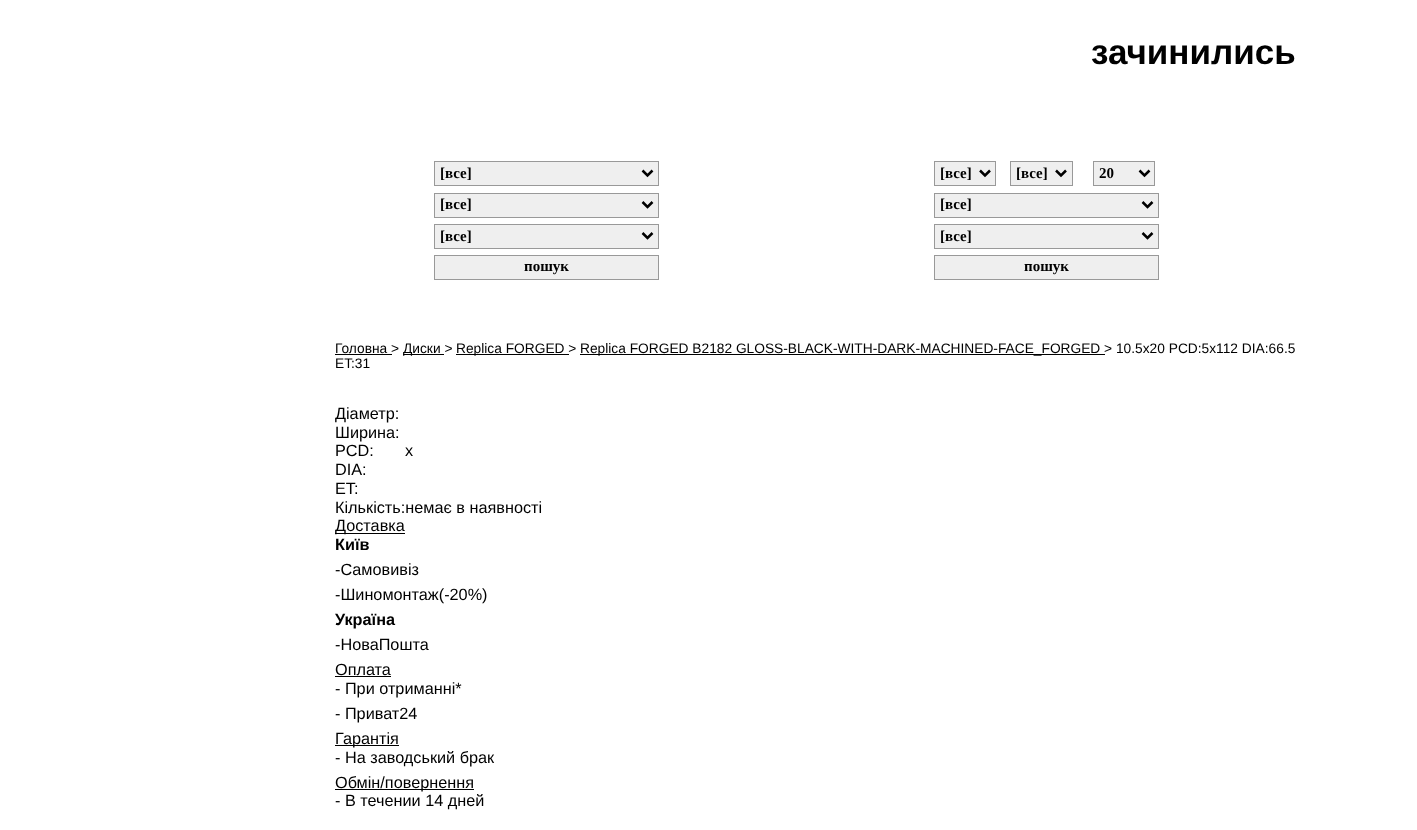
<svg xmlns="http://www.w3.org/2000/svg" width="1417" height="830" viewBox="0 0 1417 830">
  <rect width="100%" height="100%" fill="#ffffff"/>
  <text x="1091" y="64" font-family="Liberation Sans" font-size="35" font-weight="bold" fill="#000000">зачинились</text>
  <rect x="434.5" y="161.5" width="224" height="24" fill="#efefef" stroke="#999999"/>
  <path d="M642.5 170.5L647.5 175.5L652.5 170.5" fill="none" stroke="#000000" stroke-width="2.5"/>
  <text x="440" y="178" font-family="Liberation Serif" font-size="15" font-weight="bold" fill="#000000">[все]</text>
  <rect x="434.5" y="193.5" width="224" height="24" fill="#efefef" stroke="#999999"/>
  <path d="M642.5 202L647.5 207L652.5 202" fill="none" stroke="#000000" stroke-width="2.5"/>
  <text x="440" y="209" font-family="Liberation Serif" font-size="15" font-weight="bold" fill="#000000">[все]</text>
  <rect x="434.5" y="224.5" width="224" height="24" fill="#efefef" stroke="#999999"/>
  <path d="M642.5 233L647.5 238L652.5 233" fill="none" stroke="#000000" stroke-width="2.5"/>
  <text x="440" y="241" font-family="Liberation Serif" font-size="15" font-weight="bold" fill="#000000">[все]</text>
  <rect x="434.5" y="255.5" width="224" height="24" fill="#efefef" stroke="#999999"/>
  <text x="524" y="271" font-family="Liberation Serif" font-size="15" font-weight="bold" fill="#000000">пошук</text>
  <rect x="934.5" y="161.5" width="61" height="24" fill="#efefef" stroke="#999999"/>
  <path d="M980 170.5L985 175.5L990 170.5" fill="none" stroke="#000000" stroke-width="2.5"/>
  <text x="940" y="178" font-family="Liberation Serif" font-size="15" font-weight="bold" fill="#000000">[все]</text>
  <rect x="1010.5" y="161.5" width="62" height="24" fill="#efefef" stroke="#999999"/>
  <path d="M1056 170.5L1061 175.5L1066 170.5" fill="none" stroke="#000000" stroke-width="2.5"/>
  <text x="1016" y="178" font-family="Liberation Serif" font-size="15" font-weight="bold" fill="#000000">[все]</text>
  <rect x="1093.5" y="161.5" width="61" height="24" fill="#efefef" stroke="#999999"/>
  <path d="M1139.5 170.5L1144.5 175.5L1149.5 170.5" fill="none" stroke="#000000" stroke-width="2.5"/>
  <text x="1099" y="178" font-family="Liberation Serif" font-size="15" font-weight="bold" fill="#000000">20</text>
  <rect x="934.5" y="193.5" width="224" height="24" fill="#efefef" stroke="#999999"/>
  <path d="M1142.5 202L1147.5 207L1152.5 202" fill="none" stroke="#000000" stroke-width="2.5"/>
  <text x="940" y="209" font-family="Liberation Serif" font-size="15" font-weight="bold" fill="#000000">[все]</text>
  <rect x="934.5" y="224.5" width="224" height="24" fill="#efefef" stroke="#999999"/>
  <path d="M1142.5 233L1147.5 238L1152.5 233" fill="none" stroke="#000000" stroke-width="2.5"/>
  <text x="940" y="241" font-family="Liberation Serif" font-size="15" font-weight="bold" fill="#000000">[все]</text>
  <rect x="934.5" y="255.5" width="224" height="24" fill="#efefef" stroke="#999999"/>
  <text x="1024" y="271" font-family="Liberation Serif" font-size="15" font-weight="bold" fill="#000000">пошук</text>
  <text x="335" y="353" font-family="Liberation Sans" font-size="13.75" fill="#000000">Головна &gt;</text>
  <rect x="335" y="354" width="57" height="1" fill="#000000"/>
  <rect x="403" y="354" width="41" height="1" fill="#000000"/>
  <text x="403" y="353" font-family="Liberation Sans" font-size="13.75" fill="#000000">Диски &gt;</text>
  <rect x="456" y="354" width="113" height="1" fill="#000000"/>
  <text x="456" y="353" font-family="Liberation Sans" font-size="13.75" fill="#000000">Replica FORGED &gt;</text>
  <rect x="580" y="354" width="525" height="1" fill="#000000"/>
  <text x="580" y="353" font-family="Liberation Sans" font-size="13.75" fill="#000000">Replica FORGED B2182 GLOSS-BLACK-WITH-DARK-MACHINED-FACE_FORGED &gt; 10.5x20 PCD:5x112 DIA:66.5</text>
  <text x="335" y="368" font-family="Liberation Sans" font-size="13.75" fill="#000000">ET:31</text>
  <text x="335" y="419" font-family="Liberation Sans" font-size="16.25" fill="#000000">Діаметр:</text>
  <text x="335" y="438" font-family="Liberation Sans" font-size="16.25" fill="#000000">Ширина:</text>
  <text x="335" y="456" font-family="Liberation Sans" font-size="16.25" fill="#000000">PCD:</text>
  <text x="405" y="456" font-family="Liberation Sans" font-size="16.25" fill="#000000">x</text>
  <text x="335" y="475" font-family="Liberation Sans" font-size="16.25" fill="#000000">DIA:</text>
  <text x="335" y="494" font-family="Liberation Sans" font-size="16.25" fill="#000000">ET:</text>
  <text x="335" y="513" font-family="Liberation Sans" font-size="16.25" fill="#000000">Кількість:немає в наявності</text>
  <rect x="335" y="533" width="70" height="1" fill="#000000"/>
  <text x="335" y="531" font-family="Liberation Sans" font-size="16.25" fill="#000000">Доставка</text>
  <text x="335" y="550" font-family="Liberation Sans" font-size="16.25" font-weight="bold" fill="#000000">Київ</text>
  <text x="335" y="575" font-family="Liberation Sans" font-size="16.25" fill="#000000">-Самовивіз</text>
  <text x="335" y="600" font-family="Liberation Sans" font-size="16.25" fill="#000000">-Шиномонтаж(-20%)</text>
  <text x="335" y="625" font-family="Liberation Sans" font-size="16.25" font-weight="bold" fill="#000000">Україна</text>
  <text x="335" y="650" font-family="Liberation Sans" font-size="16.25" fill="#000000">-НоваПошта</text>
  <text x="335" y="675" font-family="Liberation Sans" font-size="16.25" fill="#000000">Оплата</text>
  <rect x="335" y="676" width="56" height="1" fill="#000000"/>
  <text x="335" y="694" font-family="Liberation Sans" font-size="16.25" fill="#000000">- При отриманні*</text>
  <text x="335" y="719" font-family="Liberation Sans" font-size="16.25" fill="#000000">- Приват24</text>
  <rect x="335" y="745" width="64" height="1" fill="#000000"/>
  <text x="335" y="744" font-family="Liberation Sans" font-size="16.25" fill="#000000">Гарантія</text>
  <text x="335" y="763" font-family="Liberation Sans" font-size="16.25" fill="#000000">- На заводський брак</text>
  <rect x="335" y="789" width="139" height="1" fill="#000000"/>
  <text x="335" y="788" font-family="Liberation Sans" font-size="16.25" fill="#000000">Обмін/повернення</text>
  <text x="335" y="806" font-family="Liberation Sans" font-size="16.25" fill="#000000">- В течении 14 дней</text>
</svg>
